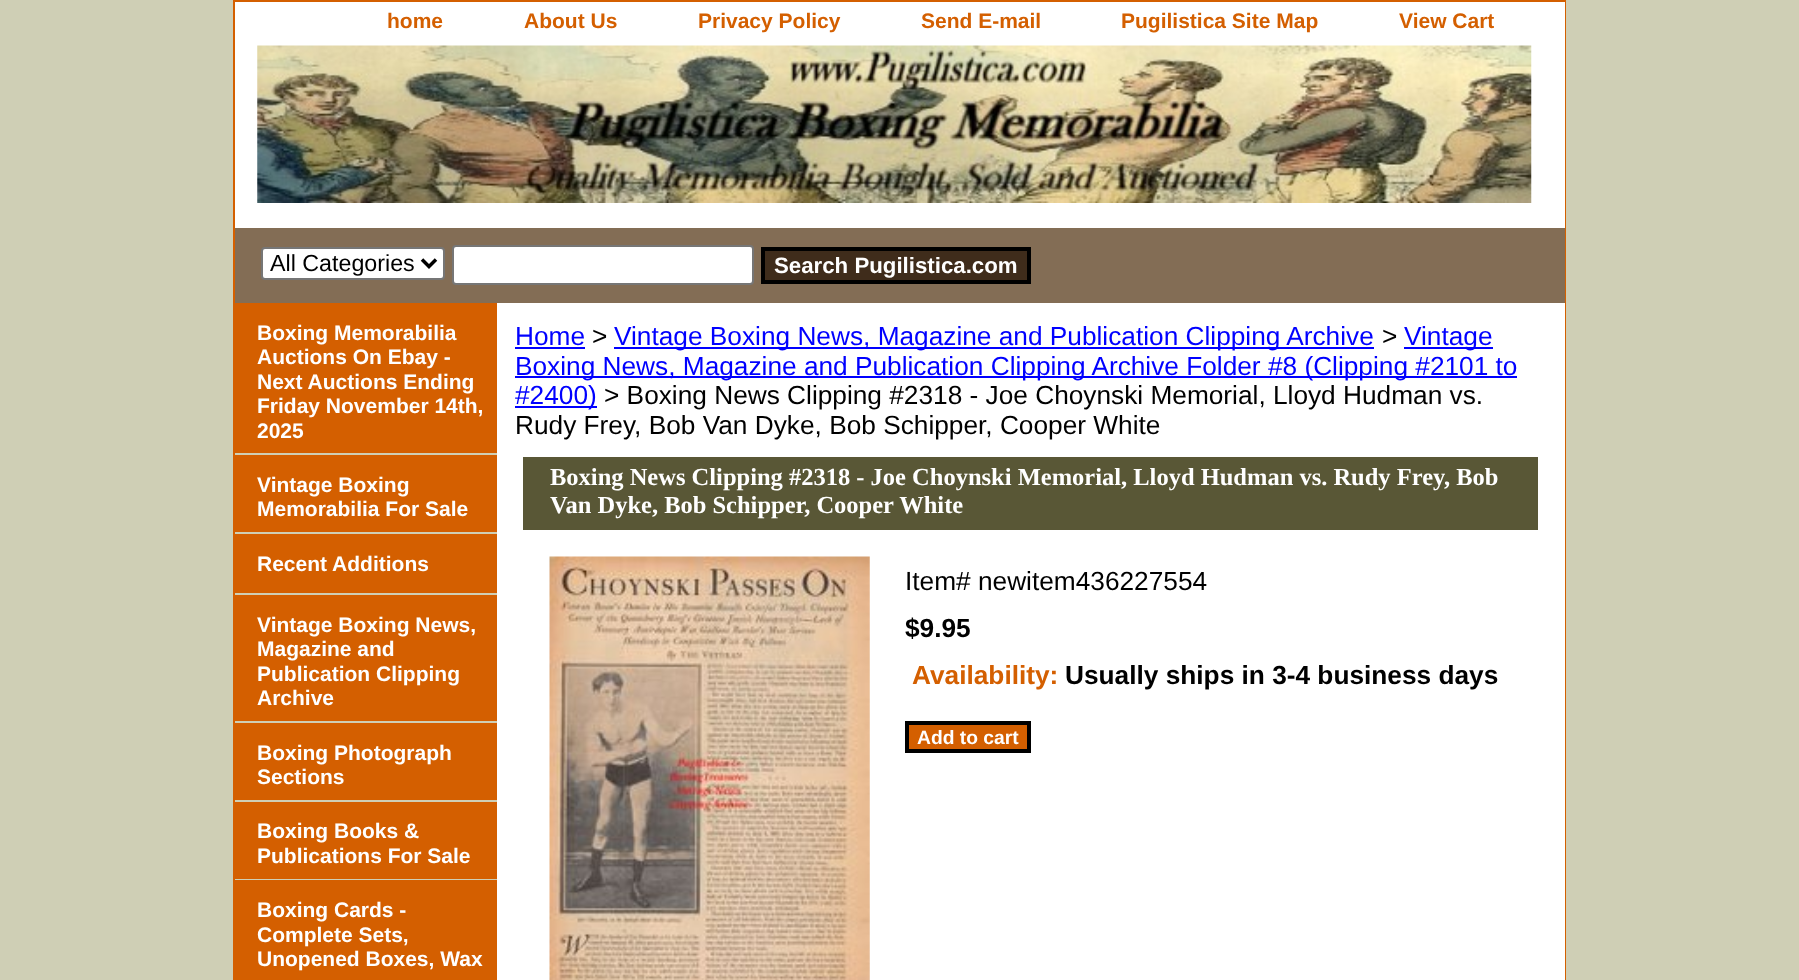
<svg xmlns="http://www.w3.org/2000/svg" width="1799" height="980" viewBox="0 0 1799 980">
  <rect width="100%" height="100%" fill="#cfcfb5"/>
  <rect x="234" y="1" width="1331" height="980" fill="none" stroke="#d45f00" stroke-width="2"/>
  <rect x="235" y="2" width="1330" height="226" fill="#ffffff"/>
  <text x="387" y="28" font-family="Liberation Sans" font-size="21" font-weight="bold" fill="#d45f00">home</text>
  <text x="524" y="28" font-family="Liberation Sans" font-size="21" font-weight="bold" fill="#d45f00">About Us</text>
  <text x="698" y="28" font-family="Liberation Sans" font-size="21" font-weight="bold" fill="#d45f00">Privacy Policy</text>
  <text x="921" y="28" font-family="Liberation Sans" font-size="21" font-weight="bold" fill="#d45f00">Send E-mail</text>
  <text x="1121" y="28" font-family="Liberation Sans" font-size="21" font-weight="bold" fill="#d45f00">Pugilistica Site Map</text>
  <text x="1399" y="28" font-family="Liberation Sans" font-size="21" font-weight="bold" fill="#d45f00">View Cart</text>
  <image x="257" y="45" width="1275" height="158" href="img1.png"/>
  <rect x="235" y="228" width="1330" height="75" fill="#836d55"/>
  <rect x="262" y="248" width="182" height="31" rx="3" fill="#ffffff" stroke="#767676" stroke-width="2"/>
  <path d="M422 259.5L429 266.5L436 259.5" fill="none" stroke="#000000" stroke-width="3.5"/>
  <text x="270" y="271" font-family="Liberation Sans" font-size="23.25" fill="#000000">All Categories</text>
  <rect x="453" y="246" width="300" height="38" rx="3" fill="#ffffff" stroke="#767676" stroke-width="2"/>
  <rect x="763" y="249" width="266" height="33" fill="#3f2c1b" stroke="#000000" stroke-width="4"/>
  <text x="774" y="273" font-family="Liberation Sans" font-size="22.25" font-weight="bold" fill="#ffffff">Search Pugilistica.com</text>
  <rect x="497" y="303" width="1068" height="677" fill="#ffffff"/>
  <rect x="235" y="303" width="262" height="576" fill="#d45f00"/>
  <rect x="235" y="453" width="262" height="2" fill="#cfcfb5"/>
  <text x="257" y="340" font-family="Liberation Sans" font-size="21" font-weight="bold" fill="#ffffff">Boxing Memorabilia</text>
  <text x="257" y="364" font-family="Liberation Sans" font-size="21" font-weight="bold" fill="#ffffff">Auctions On Ebay -</text>
  <text x="257" y="389" font-family="Liberation Sans" font-size="21" font-weight="bold" fill="#ffffff">Next Auctions Ending</text>
  <text x="257" y="413" font-family="Liberation Sans" font-size="21" font-weight="bold" fill="#ffffff">Friday November 14th,</text>
  <text x="257" y="438" font-family="Liberation Sans" font-size="21" font-weight="bold" fill="#ffffff">2025</text>
  <rect x="235" y="532" width="262" height="2" fill="#cfcfb5"/>
  <text x="257" y="492" font-family="Liberation Sans" font-size="21" font-weight="bold" fill="#ffffff">Vintage Boxing</text>
  <text x="257" y="516" font-family="Liberation Sans" font-size="21" font-weight="bold" fill="#ffffff">Memorabilia For Sale</text>
  <rect x="235" y="593" width="262" height="2" fill="#cfcfb5"/>
  <text x="257" y="571" font-family="Liberation Sans" font-size="21" font-weight="bold" fill="#ffffff">Recent Additions</text>
  <rect x="235" y="721" width="262" height="2" fill="#cfcfb5"/>
  <text x="257" y="632" font-family="Liberation Sans" font-size="21" font-weight="bold" fill="#ffffff">Vintage Boxing News,</text>
  <text x="257" y="656" font-family="Liberation Sans" font-size="21" font-weight="bold" fill="#ffffff">Magazine and</text>
  <text x="257" y="681" font-family="Liberation Sans" font-size="21" font-weight="bold" fill="#ffffff">Publication Clipping</text>
  <text x="257" y="705" font-family="Liberation Sans" font-size="21" font-weight="bold" fill="#ffffff">Archive</text>
  <rect x="235" y="800" width="262" height="2" fill="#cfcfb5"/>
  <text x="257" y="760" font-family="Liberation Sans" font-size="21" font-weight="bold" fill="#ffffff">Boxing Photograph</text>
  <text x="257" y="784" font-family="Liberation Sans" font-size="21" font-weight="bold" fill="#ffffff">Sections</text>
  <text x="257" y="838" font-family="Liberation Sans" font-size="21" font-weight="bold" fill="#ffffff">Boxing Books &amp;</text>
  <text x="257" y="863" font-family="Liberation Sans" font-size="21" font-weight="bold" fill="#ffffff">Publications For Sale</text>
  <rect x="235" y="880" width="262" height="100" fill="#d45f00"/>
  <text x="257" y="917" font-family="Liberation Sans" font-size="21" font-weight="bold" fill="#ffffff">Boxing Cards -</text>
  <text x="257" y="942" font-family="Liberation Sans" font-size="21" font-weight="bold" fill="#ffffff">Complete Sets,</text>
  <text x="257" y="966" font-family="Liberation Sans" font-size="21" font-weight="bold" fill="#ffffff">Unopened Boxes, Wax</text>
  <text x="515" y="345" font-family="Liberation Sans" font-size="26.25" fill="#0000ff">Home</text>
  <rect x="515" y="347" width="70" height="2" fill="#0000ff"/>
  <text x="592" y="345" font-family="Liberation Sans" font-size="26.25" fill="#000000">&gt;</text>
  <rect x="614" y="347" width="760" height="2" fill="#0000ff"/>
  <text x="614" y="345" font-family="Liberation Sans" font-size="26.25" fill="#0000ff">Vintage Boxing News, Magazine and Publication Clipping Archive</text>
  <text x="1382" y="345" font-family="Liberation Sans" font-size="26.25" fill="#000000">&gt;</text>
  <rect x="1404" y="347" width="89" height="2" fill="#0000ff"/>
  <text x="1404" y="345" font-family="Liberation Sans" font-size="26.25" fill="#0000ff">Vintage</text>
  <rect x="515" y="376" width="1002" height="2" fill="#0000ff"/>
  <text x="515" y="375" font-family="Liberation Sans" font-size="26.25" fill="#0000ff">Boxing News, Magazine and Publication Clipping Archive Folder #8 (Clipping #2101 to</text>
  <rect x="515" y="406" width="82" height="2" fill="#0000ff"/>
  <text x="515" y="404" font-family="Liberation Sans" font-size="26.25" fill="#0000ff">#2400)</text>
  <text x="604" y="404" font-family="Liberation Sans" font-size="26.25" fill="#000000">&gt; Boxing News Clipping #2318 - Joe Choynski Memorial, Lloyd Hudman vs.</text>
  <text x="515" y="434" font-family="Liberation Sans" font-size="26.25" fill="#000000">Rudy Frey, Bob Van Dyke, Bob Schipper, Cooper White</text>
  <rect x="523" y="457" width="1015" height="73" fill="#595736"/>
  <text x="550" y="485" font-family="Liberation Serif" font-size="24.5" font-weight="bold" fill="#ffffff">Boxing News Clipping #2318 - Joe Choynski Memorial, Lloyd Hudman vs. Rudy Frey, Bob</text>
  <text x="550" y="513" font-family="Liberation Serif" font-size="24.5" font-weight="bold" fill="#ffffff">Van Dyke, Bob Schipper, Cooper White</text>
  <image x="549" y="556" width="321" height="424" href="img2.png"/>
  <text x="905" y="590" font-family="Liberation Sans" font-size="26.25" fill="#000000">Item# newitem436227554</text>
  <text x="905" y="637" font-family="Liberation Sans" font-size="26.25" font-weight="bold" fill="#000000">$9.95</text>
  <text x="912" y="684" font-family="Liberation Sans" font-size="26.25" font-weight="bold" fill="#d45f00">Availability:</text>
  <text x="1065" y="684" font-family="Liberation Sans" font-size="26.25" font-weight="bold" fill="#000000">Usually ships in 3-4 business days</text>
  <rect x="907" y="723" width="122" height="28" fill="#d45f00" stroke="#000000" stroke-width="4"/>
  <text x="917" y="744" font-family="Liberation Sans" font-size="19.25" font-weight="bold" fill="#ffffff">Add to cart</text>
</svg>
